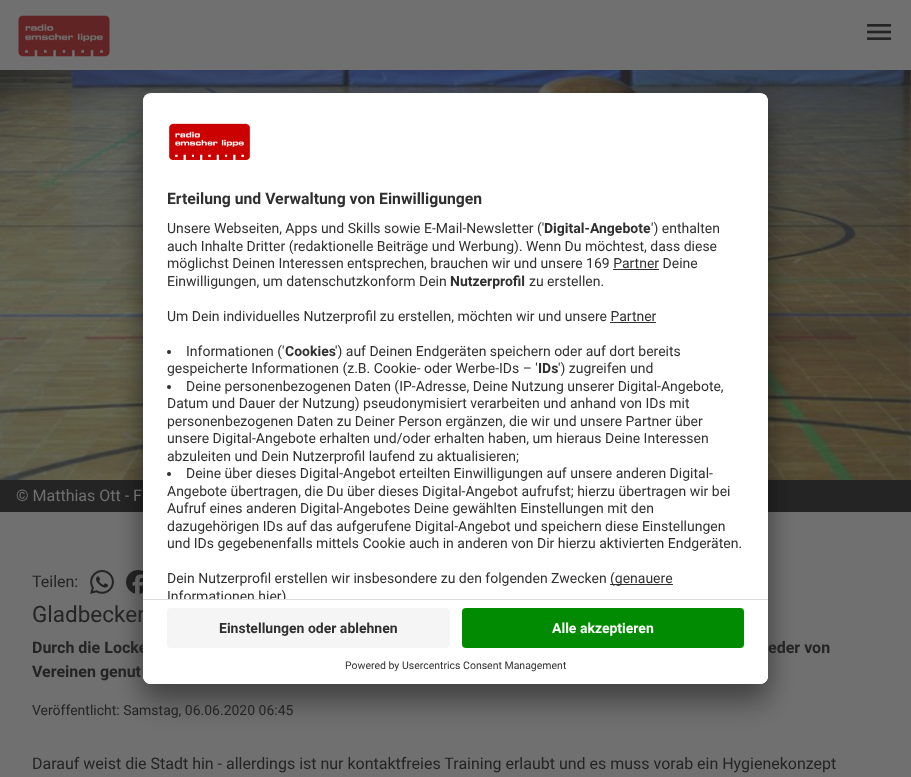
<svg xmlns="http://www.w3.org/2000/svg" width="911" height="777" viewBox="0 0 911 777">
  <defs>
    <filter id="blur1" x="-50%" y="-200%" width="200%" height="500%"><feGaussianBlur stdDeviation="14"/></filter>
    <filter id="blur2" x="-50%" y="-200%" width="200%" height="500%"><feGaussianBlur stdDeviation="13"/></filter>
    <clipPath id="clip1"><rect x="143" y="93" width="625" height="591" rx="8"/></clipPath>
    <clipPath id="clip2"><path d="M151 93H760C764.5 93 768 96.5 768 101V599H143V101C143 96.5 146.5 93 151 93Z"/></clipPath>
  </defs>
  <rect width="100%" height="100%" fill="#707070"/>
  <image x="0" y="70" width="911" height="410" href="img4.png"/>
  <rect x="0" y="480" width="911" height="32" fill="#242424"/>
  <image x="90" y="570" width="24" height="24" href="img5.png"/>
  <image x="126" y="570" width="17" height="24" href="img6.png"/>
  <rect x="143" y="113" width="625" height="591" rx="8" fill="#000000" fill-opacity="0.3" filter="url(#blur1)"/>
  <rect x="143" y="98" width="625" height="591" rx="8" fill="#000000" fill-opacity="0.22" filter="url(#blur2)"/>
  <text x="32" y="622" font-family="Roboto" font-size="22.5" fill="#242424">Gladbecker</text>
  <text x="32" y="653" font-family="Roboto" font-size="16" font-weight="bold" fill="#242424">Durch die Locke</text>
  <rect x="143" y="93" width="625" height="591" rx="8" fill="#ffffff"/>
  <g clip-path="url(#clip1)">
    <g clip-path="url(#clip2)">
      <rect x="143" y="94" width="625" height="505" fill="#ffffff"/>
    </g>
  </g>
  <image x="169" y="123" width="82" height="37" href="img1.png"/>
  <text x="167" y="204" font-family="Roboto" font-size="15.75" font-weight="bold" fill="#303030">Erteilung und Verwaltung von Einwilligungen</text>
  <text x="167" y="233" font-family="Roboto" font-size="14" fill="#303030">Unsere Webseiten, Apps und Skills sowie E-Mail-Newsletter ('</text>
  <text x="544" y="233" font-family="Roboto" font-size="14" font-weight="bold" fill="#303030">Digital-Angebote</text>
  <text x="651" y="233" font-family="Roboto" font-size="14" fill="#303030">') enthalten</text>
  <text x="167" y="251" font-family="Roboto" font-size="14" fill="#303030">auch Inhalte Dritter (redaktionelle Beiträge und Werbung). Wenn Du möchtest, dass diese</text>
  <text x="167" y="268" font-family="Roboto" font-size="14" fill="#303030">möglichst Deinen Interessen entsprechen, brauchen wir und unsere 169 Partner Deine</text>
  <rect x="613" y="269" width="46" height="1" fill="#303030"/>
  <text x="167" y="286" font-family="Roboto" font-size="14" fill="#303030">Einwilligungen, um datenschutzkonform Dein</text>
  <text x="450" y="286" font-family="Roboto" font-size="14" font-weight="bold" fill="#303030">Nutzerprofil</text>
  <text x="529" y="286" font-family="Roboto" font-size="14" fill="#303030">zu erstellen.</text>
  <text x="167" y="321" font-family="Roboto" font-size="14" fill="#303030">Um Dein individuelles Nutzerprofil zu erstellen, möchten wir und unsere Partner</text>
  <rect x="610" y="322" width="46" height="1" fill="#303030"/>
  <circle cx="169" cy="352" r="2" fill="#303030"/>
  <text x="186" y="356" font-family="Roboto" font-size="14" fill="#303030">Informationen ('</text>
  <text x="285" y="356" font-family="Roboto" font-size="14" font-weight="bold" fill="#303030">Cookies</text>
  <text x="335" y="356" font-family="Roboto" font-size="14" fill="#303030">') auf Deinen Endgeräten speichern oder auf dort bereits</text>
  <text x="167" y="373" font-family="Roboto" font-size="14" fill="#303030">gespeicherte Informationen (z.B. Cookie- oder Werbe-IDs – '</text>
  <text x="538" y="373" font-family="Roboto" font-size="14" font-weight="bold" fill="#303030">IDs</text>
  <text x="558" y="373" font-family="Roboto" font-size="14" fill="#303030">') zugreifen und</text>
  <circle cx="169" cy="387" r="2" fill="#303030"/>
  <text x="186" y="391" font-family="Roboto" font-size="14" fill="#303030">Deine personenbezogenen Daten (IP-Adresse, Deine Nutzung unserer Digital-Angebote,</text>
  <text x="167" y="408" font-family="Roboto" font-size="14" fill="#303030">Datum und Dauer der Nutzung) pseudonymisiert verarbeiten und anhand von IDs mit</text>
  <text x="167" y="426" font-family="Roboto" font-size="14" fill="#303030">personenbezogenen Daten zu Deiner Person ergänzen, die wir und unsere Partner über</text>
  <text x="167" y="443" font-family="Roboto" font-size="14" fill="#303030">unsere Digital-Angebote erhalten und/oder erhalten haben, um hieraus Deine Interessen</text>
  <text x="167" y="461" font-family="Roboto" font-size="14" fill="#303030">abzuleiten und Dein Nutzerprofil laufend zu aktualisieren;</text>
  <circle cx="169" cy="474" r="2" fill="#303030"/>
  <text x="186" y="478" font-family="Roboto" font-size="14" fill="#303030">Deine über dieses Digital-Angebot erteilten Einwilligungen auf unsere anderen Digital-</text>
  <text x="167" y="496" font-family="Roboto" font-size="14" fill="#303030">Angebote übertragen, die Du über dieses Digital-Angebot aufrufst; hierzu übertragen wir bei</text>
  <text x="167" y="513" font-family="Roboto" font-size="14" fill="#303030">Aufruf eines anderen Digital-Angebotes Deine gewählten Einstellungen mit den</text>
  <text x="167" y="531" font-family="Roboto" font-size="14" fill="#303030">dazugehörigen IDs auf das aufgerufene Digital-Angebot und speichern diese Einstellungen</text>
  <text x="167" y="548" font-family="Roboto" font-size="14" fill="#303030">und IDs gegebenenfalls mittels Cookie auch in anderen von Dir hierzu aktivierten Endgeräten.</text>
  <text x="167" y="583" font-family="Roboto" font-size="14" fill="#303030">Dein Nutzerprofil erstellen wir insbesondere zu den folgenden Zwecken</text>
  <rect x="610" y="584" width="63" height="1" fill="#303030"/>
  <text x="610" y="583" font-family="Roboto" font-size="14" fill="#303030">(genauere</text>
  <g clip-path="url(#clip2)">
    <text x="167" y="601" font-family="Roboto" font-size="14" fill="#303030">Informationen hier)</text>
  </g>
  <path d="M143 599H768V676C768 680.5 764.5 684 760 684H151C146.5 684 143 680.5 143 676Z" fill="#ffffff"/>
  <rect x="143" y="599" width="625" height="1" fill="#dddddd"/>
  <rect x="167" y="608" width="283" height="40" rx="4" fill="#f5f5f5"/>
  <text x="219" y="633" font-family="Roboto" font-size="14" font-weight="bold" fill="#303030">Einstellungen oder ablehnen</text>
  <rect x="462" y="608" width="282" height="40" rx="4" fill="#008b02"/>
  <text x="552" y="633" font-family="Roboto" font-size="14" font-weight="bold" fill="#fafafa">Alle akzeptieren</text>
  <text x="345" y="669" font-family="Roboto" font-size="10.5" fill="#303030">Powered by Usercentrics Consent Management</text>
  <image x="18" y="15" width="92" height="42" href="img2.png"/>
  <image x="867" y="24" width="24" height="16" href="img3.png"/>
  <text x="16" y="501" font-family="Roboto" font-size="16" fill="#707070">© Matthias Ott - F</text>
  <text x="32" y="587" font-family="Roboto" font-size="16" fill="#242424">Teilen:</text>
  <text x="768" y="653" font-family="Roboto" font-size="16" font-weight="bold" fill="#242424">eder von</text>
  <text x="32" y="677" font-family="Roboto" font-size="16" font-weight="bold" fill="#242424">Vereinen genut</text>
  <text x="32" y="715" font-family="Roboto" font-size="14" fill="#242424">Veröffentlicht: Samstag, 06.06.2020 06:45</text>
  <text x="32" y="769" font-family="Roboto" font-size="16" fill="#242424">Darauf weist die Stadt hin - allerdings ist nur kontaktfreies Training erlaubt und es muss vorab ein Hygienekonzept</text>
</svg>
